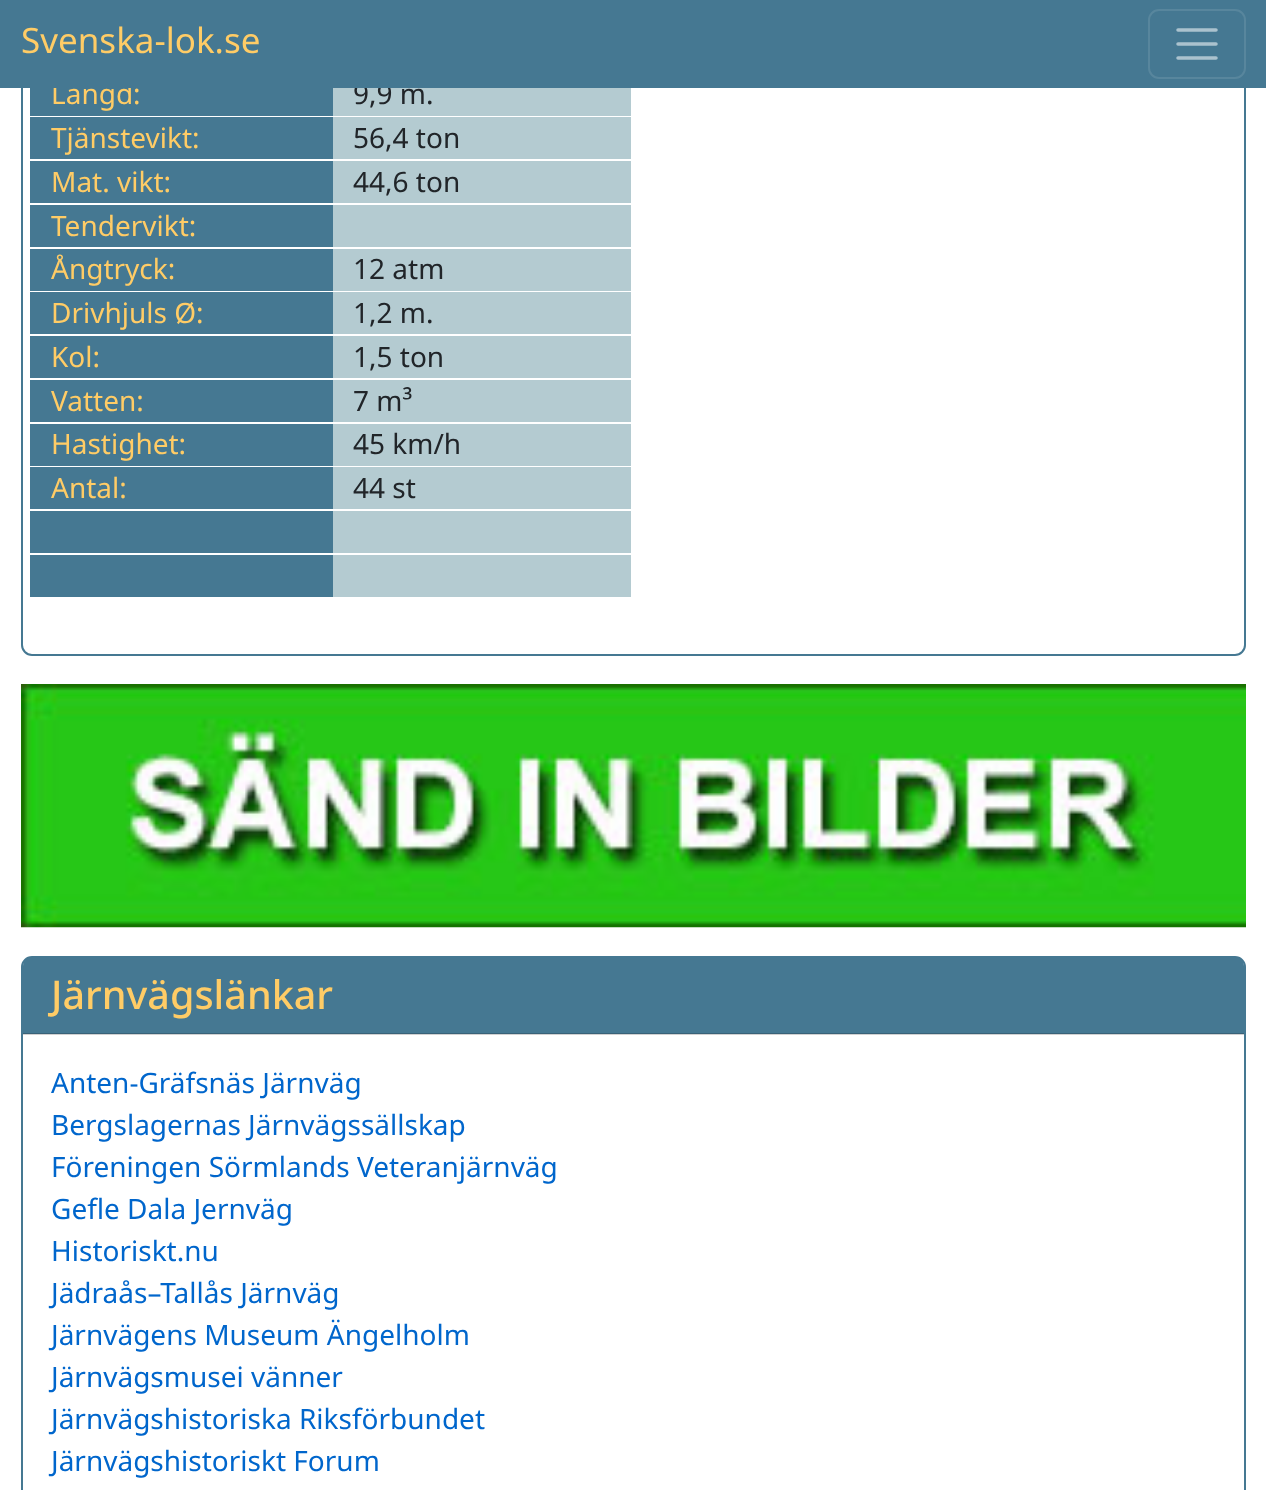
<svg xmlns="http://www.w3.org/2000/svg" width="1266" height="1490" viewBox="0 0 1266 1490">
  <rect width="100%" height="100%" fill="#ffffff"/>
  <rect x="23" y="1034" width="1221" height="1" fill="#d1d1d1"/>
  <rect x="22" y="-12" width="1223" height="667" rx="10" fill="none" stroke="#457892" stroke-width="2"/>
  <rect x="30" y="88" width="303" height="28" fill="#457892"/>
  <text x="51" y="104" font-family="Noto Sans" font-size="28" fill="#ffcc66">Längd:</text>
  <rect x="333" y="88" width="298" height="28" fill="#b4cbd1"/>
  <text x="353" y="104" font-family="Noto Sans" font-size="28" fill="#212529">9,9 m.</text>
  <rect x="0" y="0" width="1266" height="88" fill="#457892"/>
  <text x="21" y="53" font-family="Noto Sans" font-size="35" fill="#ffcc66">Svenska-lok.se</text>
  <rect x="1149" y="10" width="96" height="68" rx="10" fill="none" stroke="#58869d" stroke-width="2"/>
  <path d="M1178 30H1216M1178 44H1216M1178 58H1216" fill="none" stroke="#abc2ce" stroke-width="3.5" stroke-linecap="round"/>
  <rect x="30" y="117" width="303" height="42" fill="#457892"/>
  <text x="51" y="148" font-family="Noto Sans" font-size="28" fill="#ffcc66">Tjänstevikt:</text>
  <rect x="333" y="117" width="298" height="42" fill="#b4cbd1"/>
  <text x="353" y="148" font-family="Noto Sans" font-size="28" fill="#212529">56,4 ton</text>
  <rect x="30" y="161" width="303" height="42" fill="#457892"/>
  <text x="51" y="192" font-family="Noto Sans" font-size="28" fill="#ffcc66">Mat. vikt:</text>
  <rect x="333" y="161" width="298" height="42" fill="#b4cbd1"/>
  <text x="353" y="192" font-family="Noto Sans" font-size="28" fill="#212529">44,6 ton</text>
  <rect x="30" y="205" width="303" height="42" fill="#457892"/>
  <text x="51" y="236" font-family="Noto Sans" font-size="28" fill="#ffcc66">Tendervikt:</text>
  <rect x="333" y="205" width="298" height="42" fill="#b4cbd1"/>
  <rect x="30" y="249" width="303" height="42" fill="#457892"/>
  <text x="51" y="279" font-family="Noto Sans" font-size="28" fill="#ffcc66">Ångtryck:</text>
  <rect x="333" y="249" width="298" height="42" fill="#b4cbd1"/>
  <text x="353" y="279" font-family="Noto Sans" font-size="28" fill="#212529">12 atm</text>
  <rect x="30" y="292" width="303" height="42" fill="#457892"/>
  <text x="51" y="323" font-family="Noto Sans" font-size="28" fill="#ffcc66">Drivhjuls Ø:</text>
  <rect x="333" y="292" width="298" height="42" fill="#b4cbd1"/>
  <text x="353" y="323" font-family="Noto Sans" font-size="28" fill="#212529">1,2 m.</text>
  <rect x="30" y="336" width="303" height="42" fill="#457892"/>
  <text x="51" y="367" font-family="Noto Sans" font-size="28" fill="#ffcc66">Kol:</text>
  <rect x="333" y="336" width="298" height="42" fill="#b4cbd1"/>
  <text x="353" y="367" font-family="Noto Sans" font-size="28" fill="#212529">1,5 ton</text>
  <rect x="30" y="380" width="303" height="42" fill="#457892"/>
  <text x="51" y="411" font-family="Noto Sans" font-size="28" fill="#ffcc66">Vatten:</text>
  <rect x="333" y="380" width="298" height="42" fill="#b4cbd1"/>
  <text x="353" y="411" font-family="Noto Sans" font-size="28" fill="#212529">7 m³</text>
  <rect x="30" y="424" width="303" height="42" fill="#457892"/>
  <text x="51" y="454" font-family="Noto Sans" font-size="28" fill="#ffcc66">Hastighet:</text>
  <rect x="333" y="424" width="298" height="42" fill="#b4cbd1"/>
  <text x="353" y="454" font-family="Noto Sans" font-size="28" fill="#212529">45 km/h</text>
  <rect x="30" y="467" width="303" height="42" fill="#457892"/>
  <text x="51" y="498" font-family="Noto Sans" font-size="28" fill="#ffcc66">Antal:</text>
  <rect x="333" y="467" width="298" height="42" fill="#b4cbd1"/>
  <text x="353" y="498" font-family="Noto Sans" font-size="28" fill="#212529">44 st</text>
  <rect x="30" y="511" width="303" height="42" fill="#457892"/>
  <rect x="333" y="511" width="298" height="42" fill="#b4cbd1"/>
  <rect x="30" y="555" width="303" height="42" fill="#457892"/>
  <rect x="333" y="555" width="298" height="42" fill="#b4cbd1"/>
  <image x="21" y="684" width="1225" height="244" href="img1.png"/>
  <rect x="22" y="957" width="1223" height="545" rx="10" fill="none" stroke="#457892" stroke-width="2"/>
  <path d="M32 957H1235C1240 957 1244 961 1244 966V1034H23V966C23 961 27 957 32 957Z" fill="#457892"/>
  <rect x="23" y="1033" width="1221" height="1" fill="#396278"/>
  <text x="51" y="1009" font-family="Noto Sans" font-size="39.5" font-weight="500" fill="#ffcc66">Järnvägslänkar</text>
  <text x="51" y="1093" font-family="Noto Sans" font-size="28" fill="#0066cc">Anten-Gräfsnäs Järnväg</text>
  <text x="51" y="1135" font-family="Noto Sans" font-size="28" fill="#0066cc">Bergslagernas Järnvägssällskap</text>
  <text x="51" y="1177" font-family="Noto Sans" font-size="28" fill="#0066cc">Föreningen Sörmlands Veteranjärnväg</text>
  <text x="51" y="1219" font-family="Noto Sans" font-size="28" fill="#0066cc">Gefle Dala Jernväg</text>
  <text x="51" y="1261" font-family="Noto Sans" font-size="28" fill="#0066cc">Historiskt.nu</text>
  <text x="51" y="1303" font-family="Noto Sans" font-size="28" fill="#0066cc">Jädraås–Tallås Järnväg</text>
  <text x="51" y="1345" font-family="Noto Sans" font-size="28" fill="#0066cc">Järnvägens Museum Ängelholm</text>
  <text x="51" y="1387" font-family="Noto Sans" font-size="28" fill="#0066cc">Järnvägsmusei vänner</text>
  <text x="51" y="1429" font-family="Noto Sans" font-size="28" fill="#0066cc">Järnvägshistoriska Riksförbundet</text>
  <text x="51" y="1471" font-family="Noto Sans" font-size="28" fill="#0066cc">Järnvägshistoriskt Forum</text>
</svg>
